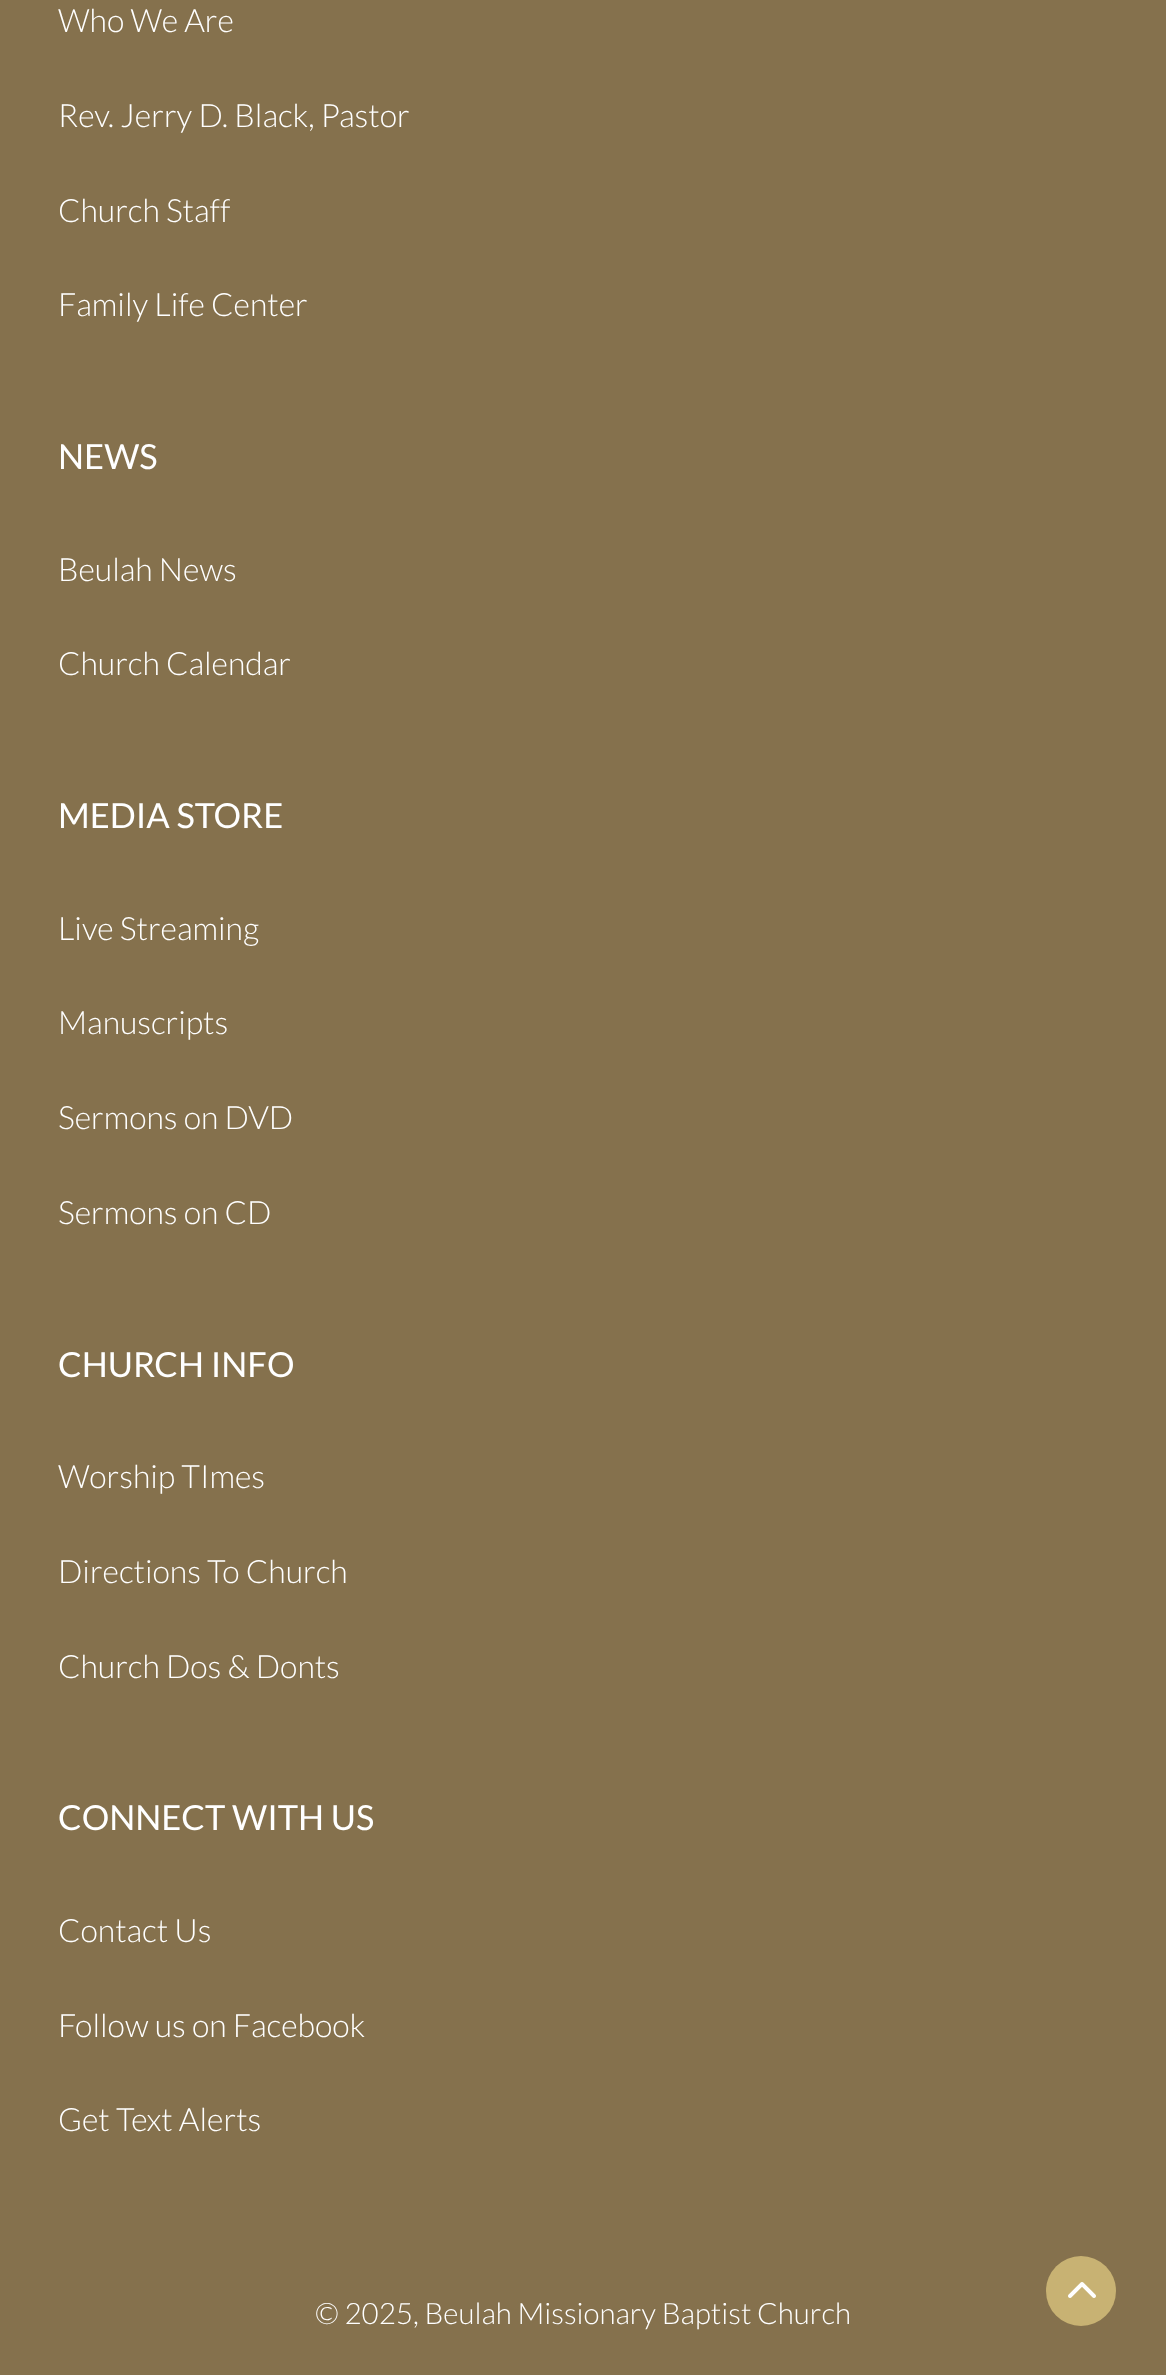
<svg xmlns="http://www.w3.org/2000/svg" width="1166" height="2375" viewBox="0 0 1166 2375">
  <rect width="100%" height="100%" fill="#85714d"/>
  <text x="58" y="32" font-family="Lato" font-size="32" font-weight="300" fill="#ffffff">Who We Are</text>
  <text x="58" y="127" font-family="Lato" font-size="32" font-weight="300" fill="#ffffff">Rev. Jerry D. Black, Pastor</text>
  <text x="58" y="222" font-family="Lato" font-size="32" font-weight="300" fill="#ffffff">Church Staff</text>
  <text x="58" y="316" font-family="Lato" font-size="32" font-weight="300" fill="#ffffff">Family Life Center</text>
  <text x="58" y="469" font-family="Lato" font-size="34.5" fill="#ffffff">NEWS</text>
  <text x="58" y="581" font-family="Lato" font-size="32" font-weight="300" fill="#ffffff">Beulah News</text>
  <text x="58" y="675" font-family="Lato" font-size="32" font-weight="300" fill="#ffffff">Church Calendar</text>
  <text x="58" y="828" font-family="Lato" font-size="34.5" fill="#ffffff">MEDIA STORE</text>
  <text x="58" y="940" font-family="Lato" font-size="32" font-weight="300" fill="#ffffff">Live Streaming</text>
  <text x="58" y="1034" font-family="Lato" font-size="32" font-weight="300" fill="#ffffff">Manuscripts</text>
  <text x="58" y="1129" font-family="Lato" font-size="32" font-weight="300" fill="#ffffff">Sermons on DVD</text>
  <text x="58" y="1224" font-family="Lato" font-size="32" font-weight="300" fill="#ffffff">Sermons on CD</text>
  <text x="58" y="1377" font-family="Lato" font-size="34.5" fill="#ffffff">CHURCH INFO</text>
  <text x="58" y="1488" font-family="Lato" font-size="32" font-weight="300" fill="#ffffff">Worship TImes</text>
  <text x="58" y="1583" font-family="Lato" font-size="32" font-weight="300" fill="#ffffff">Directions To Church</text>
  <text x="58" y="1678" font-family="Lato" font-size="32" font-weight="300" fill="#ffffff">Church Dos &amp; Donts</text>
  <text x="58" y="1830" font-family="Lato" font-size="34.5" fill="#ffffff">CONNECT WITH US</text>
  <text x="58" y="1942" font-family="Lato" font-size="32" font-weight="300" fill="#ffffff">Contact Us</text>
  <text x="58" y="2037" font-family="Lato" font-size="32" font-weight="300" fill="#ffffff">Follow us on Facebook</text>
  <text x="58" y="2131" font-family="Lato" font-size="32" font-weight="300" fill="#ffffff">Get Text Alerts</text>
  <text x="315" y="2324" font-family="Lato" font-size="29.5" font-weight="300" fill="#ffffff">© 2025, Beulah Missionary Baptist Church</text>
  <circle cx="1081" cy="2291" r="35" fill="#c8b273"/>
  <image x="1068" y="2282" width="28" height="16" href="img1.png"/>
</svg>
